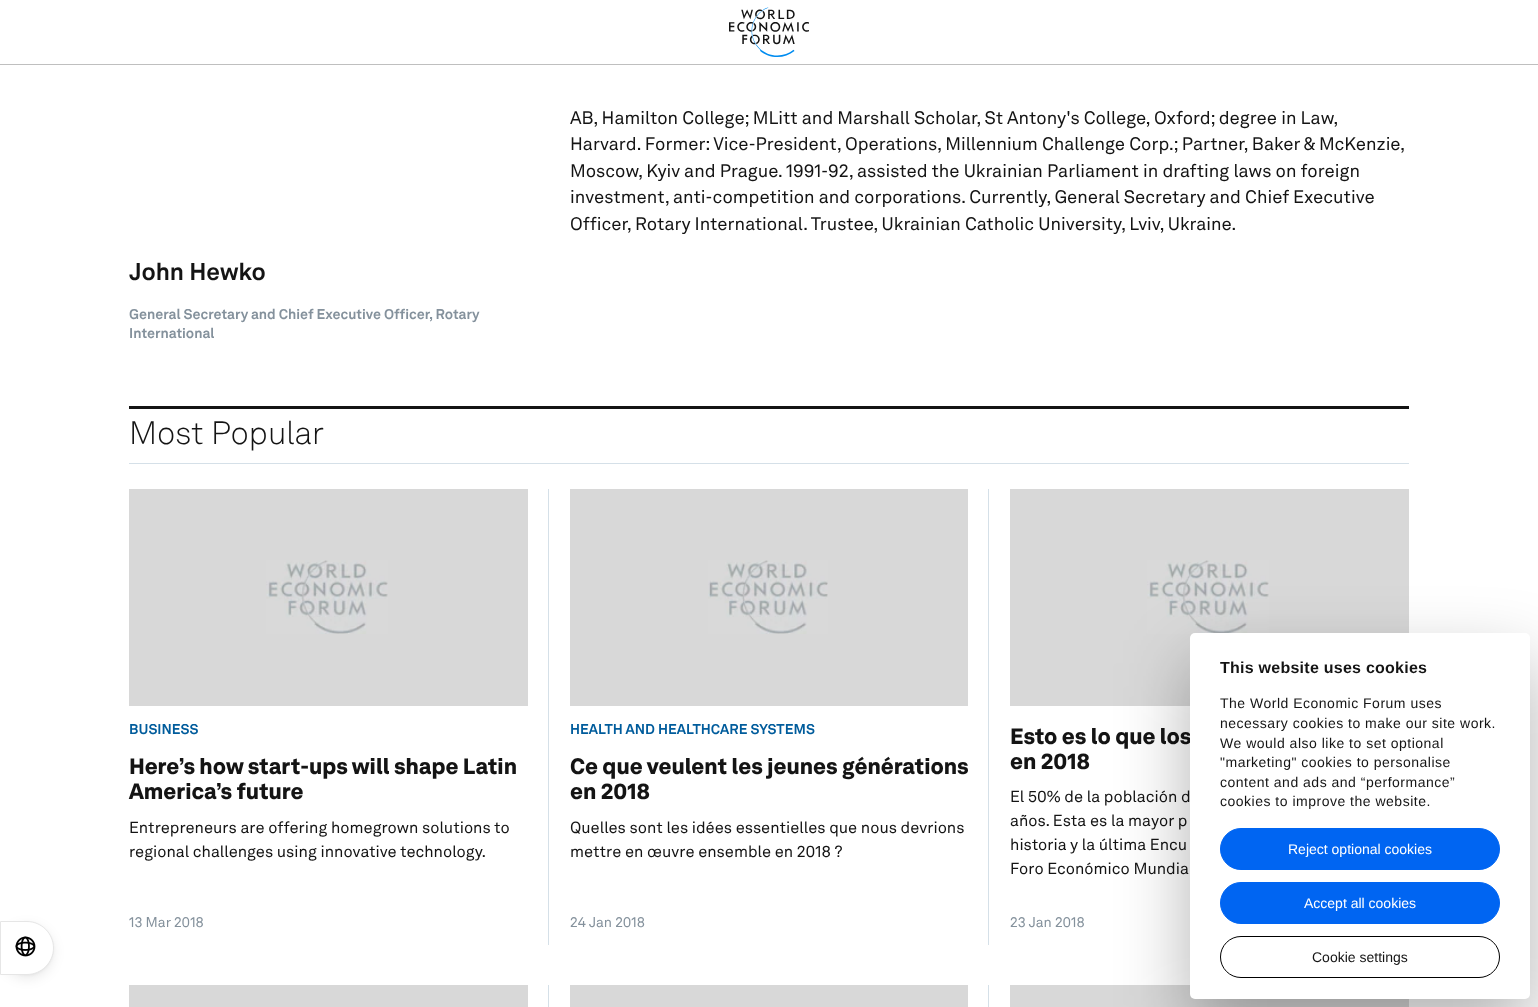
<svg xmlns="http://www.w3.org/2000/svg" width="1538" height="1007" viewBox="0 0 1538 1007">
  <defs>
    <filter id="blur1" x="-50%" y="-200%" width="200%" height="500%"><feGaussianBlur stdDeviation="1"/></filter>
    <filter id="blur2" x="-50%" y="-200%" width="200%" height="500%"><feGaussianBlur stdDeviation="6"/></filter>
    <filter id="blur3" x="-50%" y="-200%" width="200%" height="500%"><feGaussianBlur stdDeviation="35"/></filter>
  </defs>
  <rect width="100%" height="100%" fill="#ffffff"/>
  <rect x="0" y="64" width="1538" height="1" fill="#bfbfbf"/>
  <image x="729" y="7" width="80" height="50" href="img1.png"/>
  <text x="570" y="124" font-family="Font" font-size="18" fill="#141414">AB, Hamilton College; MLitt and Marshall Scholar, St Antony's College, Oxford; degree in Law,</text>
  <text x="570" y="150" font-family="Font" font-size="18" fill="#141414">Harvard. Former: Vice-President, Operations, Millennium Challenge Corp.; Partner, Baker &amp; McKenzie,</text>
  <text x="570" y="177" font-family="Font" font-size="18" fill="#141414">Moscow, Kyiv and Prague. 1991-92, assisted the Ukrainian Parliament in drafting laws on foreign</text>
  <text x="570" y="203" font-family="Font" font-size="18" fill="#141414">investment, anti-competition and corporations. Currently, General Secretary and Chief Executive</text>
  <text x="570" y="230" font-family="Font" font-size="18" fill="#141414">Officer, Rotary International. Trustee, Ukrainian Catholic University, Lviv, Ukraine.</text>
  <text x="129" y="280" font-family="Font" font-size="24" font-weight="bold" fill="#141414">John Hewko</text>
  <text x="129" y="319" font-family="Font" font-size="14" font-weight="bold" fill="#84919c">General Secretary and Chief Executive Officer, Rotary</text>
  <text x="129" y="338" font-family="Font" font-size="14" font-weight="bold" fill="#84919c">International</text>
  <rect x="129" y="406" width="1280" height="3" fill="#141414"/>
  <rect x="129" y="463" width="1280" height="1" fill="#d5e0e8"/>
  <text x="129" y="444" font-family="Font" font-size="32" font-weight="300" fill="#141414">Most Popular</text>
  <rect x="129" y="489" width="399" height="217" fill="#d8d8d8"/>
  <image x="266" y="560" width="122" height="74" href="img2.png"/>
  <text x="129" y="734" font-family="Font" font-size="14" font-weight="bold" fill="#005c9c">BUSINESS</text>
  <text x="129" y="774" font-family="Font" font-size="22" font-weight="900" fill="#141414">Here’s how start-ups will shape Latin</text>
  <text x="129" y="799" font-family="Font" font-size="22" font-weight="900" fill="#141414">America’s future</text>
  <text x="129" y="833" font-family="Font" font-size="16" fill="#141414">Entrepreneurs are offering homegrown solutions to</text>
  <text x="129" y="857" font-family="Font" font-size="16" fill="#141414">regional challenges using innovative technology.</text>
  <text x="129" y="927" font-family="Font" font-size="14" fill="#84919c">13 Mar 2018</text>
  <rect x="548" y="489" width="1" height="456" fill="#d5e0e8"/>
  <rect x="570" y="489" width="398" height="217" fill="#d8d8d8"/>
  <image x="708" y="560" width="120" height="74" href="img3.png"/>
  <text x="570" y="734" font-family="Font" font-size="14" font-weight="bold" fill="#005c9c">HEALTH AND HEALTHCARE SYSTEMS</text>
  <text x="570" y="774" font-family="Font" font-size="22" font-weight="900" fill="#141414">Ce que veulent les jeunes générations</text>
  <text x="570" y="799" font-family="Font" font-size="22" font-weight="900" fill="#141414">en 2018</text>
  <text x="570" y="833" font-family="Font" font-size="16" fill="#141414">Quelles sont les idées essentielles que nous devrions</text>
  <text x="570" y="857" font-family="Font" font-size="16" fill="#141414">mettre en œuvre ensemble en 2018 ?</text>
  <text x="570" y="927" font-family="Font" font-size="14" fill="#84919c">24 Jan 2018</text>
  <rect x="988" y="489" width="1" height="456" fill="#d5e0e8"/>
  <rect x="1010" y="489" width="399" height="217" fill="#d8d8d8"/>
  <image x="1147" y="560" width="122" height="74" href="img4.png"/>
  <text x="1010" y="744" font-family="Font" font-size="22" font-weight="900" fill="#141414">Esto es lo que los</text>
  <text x="1010" y="769" font-family="Font" font-size="22" font-weight="900" fill="#141414">en 2018</text>
  <text x="1010" y="802" font-family="Font" font-size="16" fill="#141414">El 50% de la población d</text>
  <text x="1010" y="826" font-family="Font" font-size="16" fill="#141414">años. Esta es la mayor p</text>
  <text x="1010" y="850" font-family="Font" font-size="16" fill="#141414">historia y la última Encu</text>
  <text x="1010" y="874" font-family="Font" font-size="16" fill="#141414">Foro Económico Mundia</text>
  <text x="1010" y="927" font-family="Font" font-size="14" fill="#84919c">23 Jan 2018</text>
  <rect x="129" y="985" width="399" height="22" fill="#d8d8d8"/>
  <rect x="548" y="985" width="1" height="22" fill="#d5e0e8"/>
  <rect x="570" y="985" width="398" height="22" fill="#d8d8d8"/>
  <rect x="988" y="985" width="1" height="22" fill="#d5e0e8"/>
  <rect x="1010" y="985" width="399" height="22" fill="#d8d8d8"/>
  <rect x="0" y="922" width="54" height="54" rx="27" fill="#000000" fill-opacity="0.04" filter="url(#blur1)"/>
  <rect x="0" y="925" width="54" height="54" rx="27" fill="#000000" fill-opacity="0.08" filter="url(#blur2)"/>
  <path d="M.5 921.5H27C41.5 921.5 53.5 933.5 53.5 948C53.5 962.5 41.5 974.5 27 974.5H.5Z" fill="#ffffff" stroke="#e6e6e6"/>
  <image x="15" y="936" width="21" height="21" href="img5.png"/>
  <rect x="1190" y="663" width="340" height="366" rx="5" fill="#000000" fill-opacity="0.3" filter="url(#blur3)"/>
  <rect x="1190" y="633" width="340" height="366" rx="5" fill="#ffffff"/>
  <text x="1220" y="673" font-family="Liberation Sans" font-size="16" font-weight="bold" letter-spacing="0.25" fill="#141414">This website uses cookies</text>
  <text x="1220" y="708" font-family="Liberation Sans" font-size="14" letter-spacing="0.5" fill="#141414">The World Economic Forum uses</text>
  <text x="1220" y="728" font-family="Liberation Sans" font-size="14" letter-spacing="0.5" fill="#141414">necessary cookies to make our site work.</text>
  <text x="1220" y="748" font-family="Liberation Sans" font-size="14" letter-spacing="0.5" fill="#141414">We would also like to set optional</text>
  <text x="1220" y="767" font-family="Liberation Sans" font-size="14" letter-spacing="0.5" fill="#141414">"marketing" cookies to personalise</text>
  <text x="1220" y="787" font-family="Liberation Sans" font-size="14" letter-spacing="0.5" fill="#141414">content and ads and “performance”</text>
  <text x="1220" y="806" font-family="Liberation Sans" font-size="14" letter-spacing="0.5" fill="#141414">cookies to improve the website.</text>
  <rect x="1220.5" y="828.5" width="279" height="41" rx="20.5" fill="#0065f2" stroke="#0065f2"/>
  <text x="1288" y="854" font-family="Liberation Sans" font-size="14" fill="#ffffff">Reject optional cookies</text>
  <rect x="1220.5" y="882.5" width="279" height="41" rx="20.5" fill="#0065f2" stroke="#0065f2"/>
  <text x="1304" y="908" font-family="Liberation Sans" font-size="14" fill="#ffffff">Accept all cookies</text>
  <rect x="1220.5" y="936.5" width="279" height="41" rx="20.5" fill="none" stroke="#000000"/>
  <text x="1312" y="962" font-family="Liberation Sans" font-size="14" fill="#141414">Cookie settings</text>
</svg>
